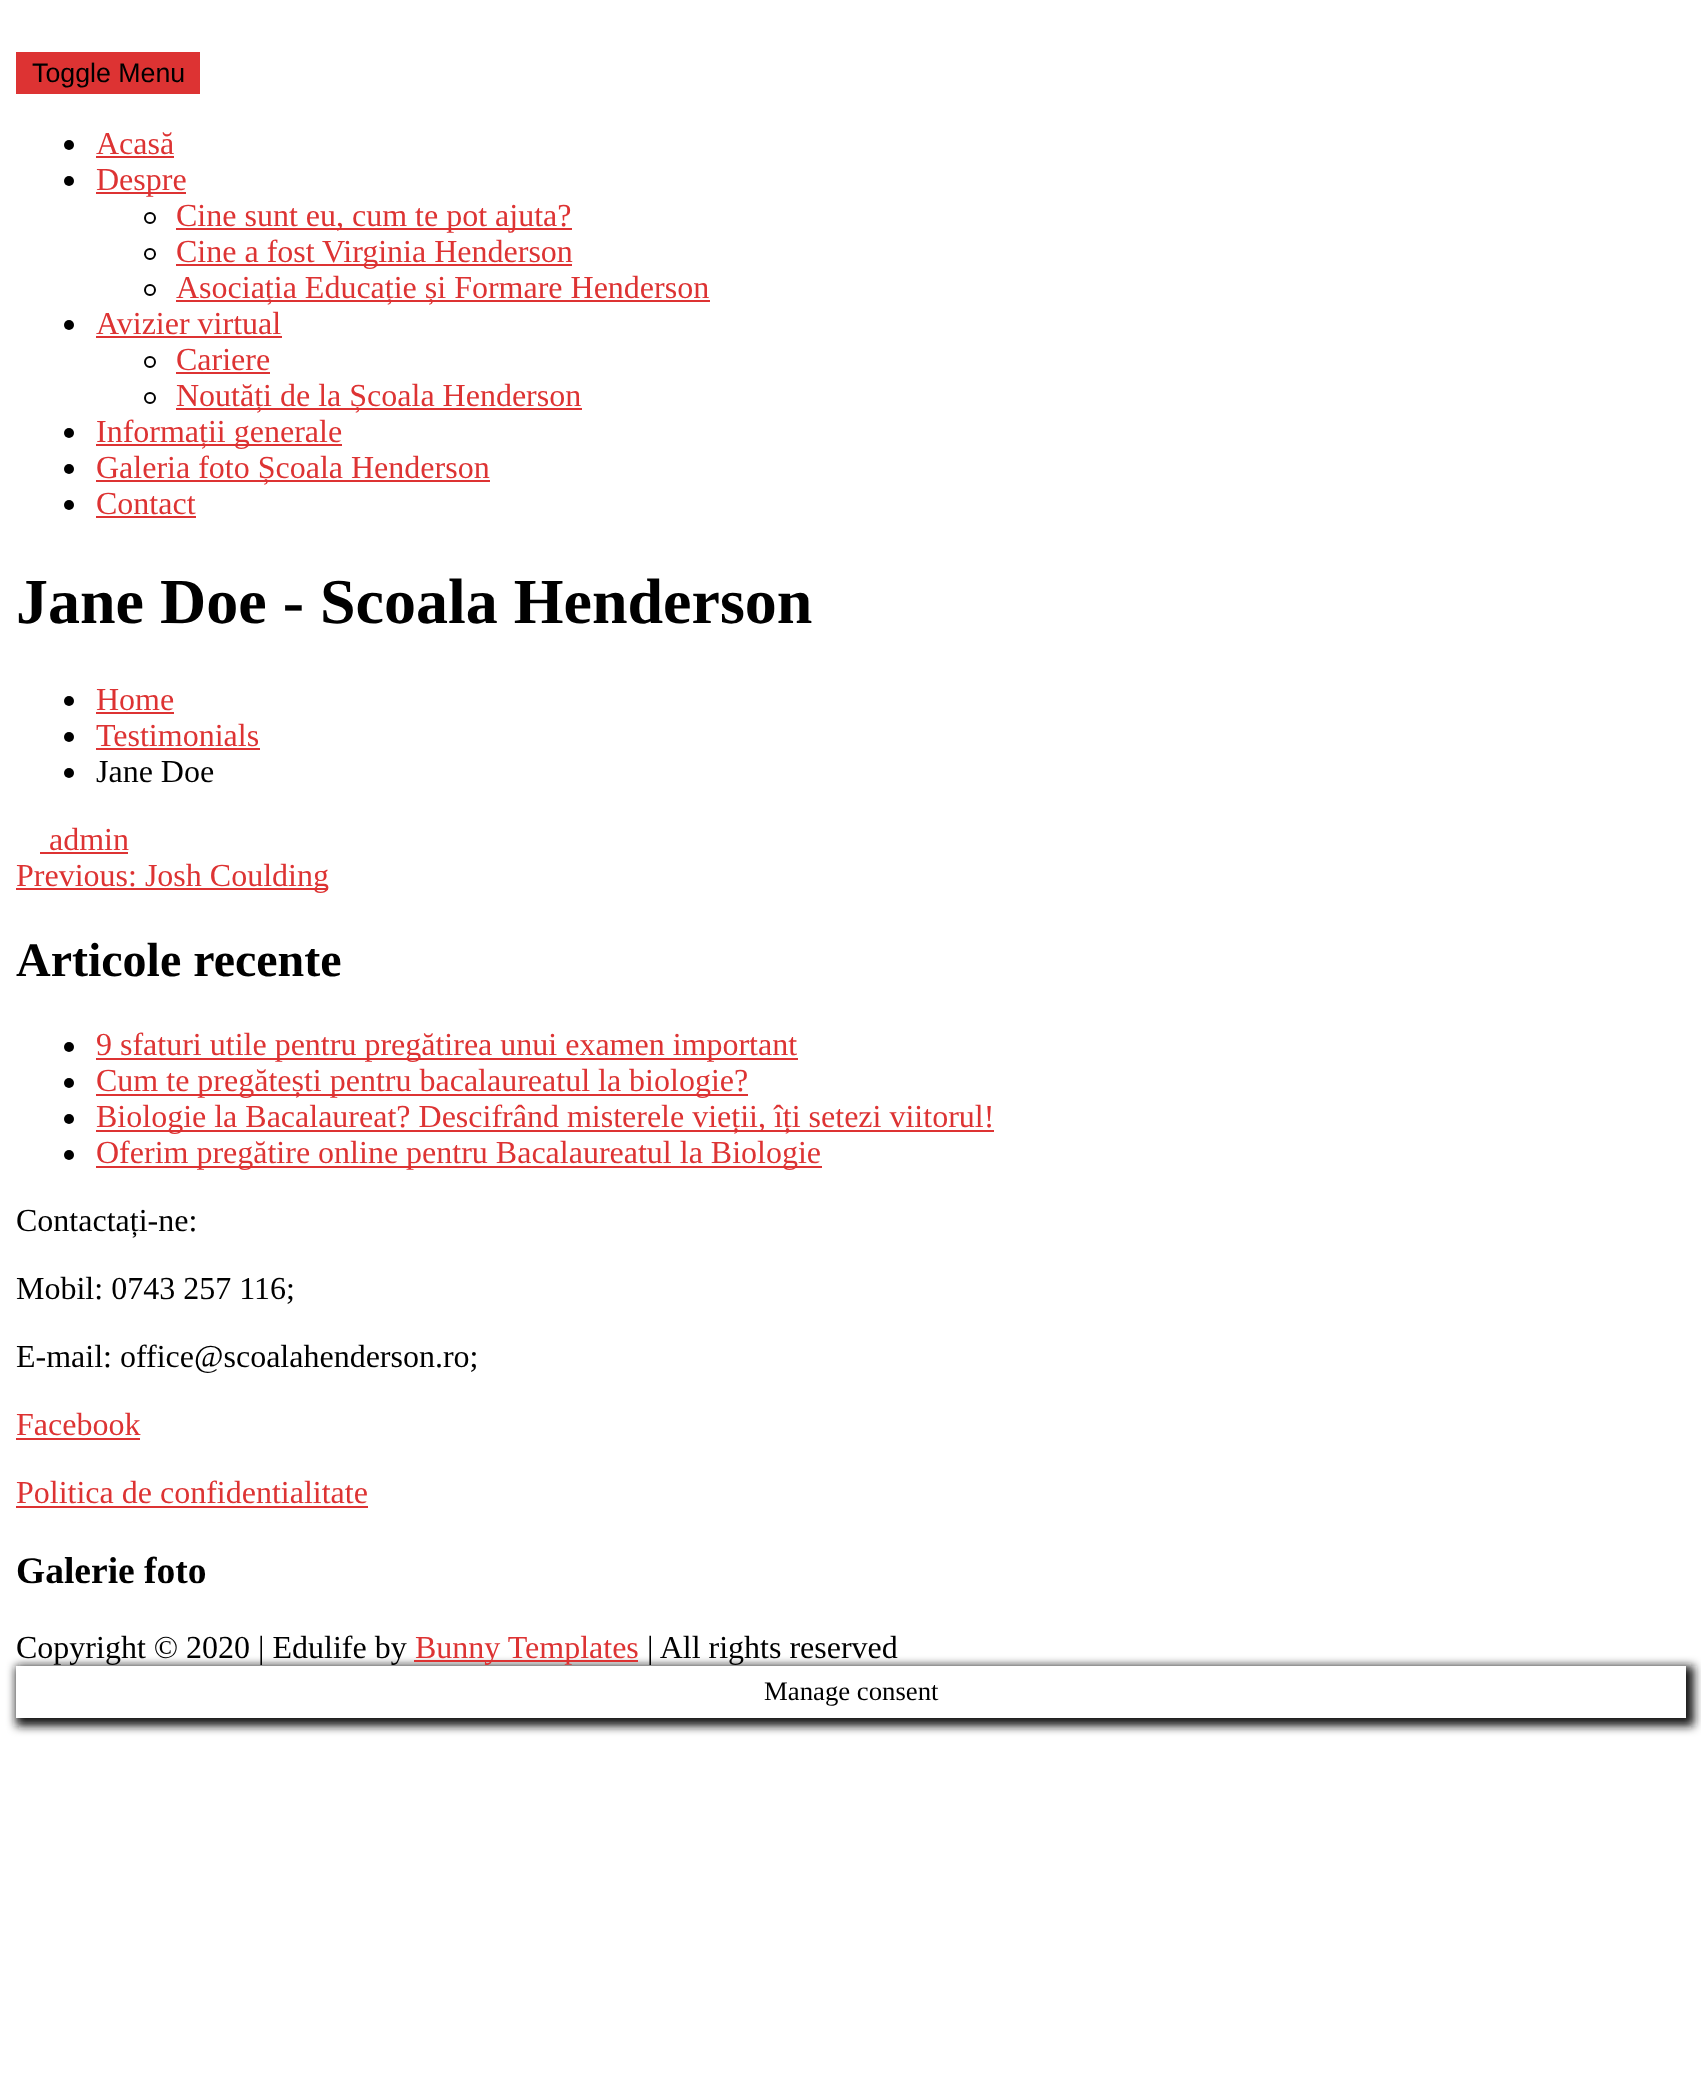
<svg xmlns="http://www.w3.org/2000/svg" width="1701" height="2093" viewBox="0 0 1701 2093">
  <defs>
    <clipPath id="clip1"><path d="M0 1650H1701V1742H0ZM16 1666H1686V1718H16Z" clip-rule="evenodd"/></clipPath>
    <filter id="blur1" x="-50%" y="-200%" width="200%" height="500%"><feGaussianBlur stdDeviation="5"/></filter>
  </defs>
  <rect width="100%" height="100%" fill="#ffffff"/>
  <rect x="16" y="52" width="184" height="42" fill="#dd3333"/>
  <text x="32" y="82" font-family="Liberation Sans" font-size="26.75" fill="#000000">Toggle Menu</text>
  <circle cx="69" cy="145" r="5" fill="#000000"/>
  <text x="96" y="154" font-family="Liberation Serif" font-size="32" fill="#dd3333">Acasă</text>
  <rect x="96" y="156" width="78" height="2" fill="#dd3333"/>
  <circle cx="69" cy="181" r="5" fill="#000000"/>
  <rect x="96" y="192" width="90" height="2" fill="#dd3333"/>
  <text x="96" y="190" font-family="Liberation Serif" font-size="32" fill="#dd3333">Despre</text>
  <circle cx="150" cy="218" r="5" fill="none" stroke="#000000" stroke-width="2"/>
  <rect x="176" y="228" width="396" height="2" fill="#dd3333"/>
  <text x="176" y="226" font-family="Liberation Serif" font-size="32" fill="#dd3333">Cine sunt eu, cum te pot ajuta?</text>
  <circle cx="150" cy="254" r="5" fill="none" stroke="#000000" stroke-width="2"/>
  <rect x="176" y="264" width="396" height="2" fill="#dd3333"/>
  <text x="176" y="262" font-family="Liberation Serif" font-size="32" fill="#dd3333">Cine a fost Virginia Henderson</text>
  <circle cx="150" cy="290" r="5" fill="none" stroke="#000000" stroke-width="2"/>
  <rect x="176" y="300" width="534" height="2" fill="#dd3333"/>
  <text x="176" y="298" font-family="Liberation Serif" font-size="32" fill="#dd3333">Asociația Educație și Formare Henderson</text>
  <circle cx="69" cy="325" r="5" fill="#000000"/>
  <text x="96" y="334" font-family="Liberation Serif" font-size="32" fill="#dd3333">Avizier virtual</text>
  <rect x="96" y="336" width="186" height="2" fill="#dd3333"/>
  <circle cx="150" cy="362" r="5" fill="none" stroke="#000000" stroke-width="2"/>
  <text x="176" y="370" font-family="Liberation Serif" font-size="32" fill="#dd3333">Cariere</text>
  <rect x="176" y="372" width="94" height="2" fill="#dd3333"/>
  <circle cx="150" cy="398" r="5" fill="none" stroke="#000000" stroke-width="2"/>
  <rect x="176" y="408" width="406" height="2" fill="#dd3333"/>
  <text x="176" y="406" font-family="Liberation Serif" font-size="32" fill="#dd3333">Noutăți de la Școala Henderson</text>
  <circle cx="69" cy="433" r="5" fill="#000000"/>
  <rect x="96" y="444" width="246" height="2" fill="#dd3333"/>
  <text x="96" y="442" font-family="Liberation Serif" font-size="32" fill="#dd3333">Informații generale</text>
  <circle cx="69" cy="469" r="5" fill="#000000"/>
  <rect x="96" y="480" width="394" height="2" fill="#dd3333"/>
  <text x="96" y="478" font-family="Liberation Serif" font-size="32" fill="#dd3333">Galeria foto Școala Henderson</text>
  <circle cx="69" cy="505" r="5" fill="#000000"/>
  <text x="96" y="514" font-family="Liberation Serif" font-size="32" fill="#dd3333">Contact</text>
  <rect x="96" y="516" width="100" height="2" fill="#dd3333"/>
  <text x="16" y="623" font-family="Liberation Serif" font-size="64" font-weight="bold" fill="#000000">Jane Doe - Scoala Henderson</text>
  <circle cx="69" cy="701" r="5" fill="#000000"/>
  <text x="96" y="710" font-family="Liberation Serif" font-size="32" fill="#dd3333">Home</text>
  <rect x="96" y="712" width="78" height="2" fill="#dd3333"/>
  <circle cx="69" cy="737" r="5" fill="#000000"/>
  <text x="96" y="746" font-family="Liberation Serif" font-size="32" fill="#dd3333">Testimonials</text>
  <rect x="96" y="748" width="164" height="2" fill="#dd3333"/>
  <circle cx="69" cy="773" r="5" fill="#000000"/>
  <text x="96" y="782" font-family="Liberation Serif" font-size="32" fill="#000000">Jane Doe</text>
  <text x="49" y="850" font-family="Liberation Serif" font-size="32" fill="#dd3333">admin</text>
  <rect x="40" y="852" width="88" height="2" fill="#dd3333"/>
  <rect x="16" y="888" width="312" height="2" fill="#dd3333"/>
  <text x="16" y="886" font-family="Liberation Serif" font-size="32" fill="#dd3333">Previous: Josh Coulding</text>
  <text x="16" y="976" font-family="Liberation Serif" font-size="48" font-weight="bold" fill="#000000">Articole recente</text>
  <circle cx="69" cy="1047" r="5" fill="#000000"/>
  <rect x="96" y="1058" width="702" height="2" fill="#dd3333"/>
  <text x="96" y="1055" font-family="Liberation Serif" font-size="32" fill="#dd3333">9 sfaturi utile pentru pregătirea unui examen important</text>
  <circle cx="69" cy="1083" r="5" fill="#000000"/>
  <rect x="96" y="1094" width="652" height="2" fill="#dd3333"/>
  <text x="96" y="1091" font-family="Liberation Serif" font-size="32" fill="#dd3333">Cum te pregătești pentru bacalaureatul la biologie?</text>
  <circle cx="69" cy="1119" r="5" fill="#000000"/>
  <rect x="96" y="1130" width="898" height="2" fill="#dd3333"/>
  <text x="96" y="1127" font-family="Liberation Serif" font-size="32" fill="#dd3333">Biologie la Bacalaureat? Descifrând misterele vieții, îți setezi viitorul!</text>
  <circle cx="69" cy="1155" r="5" fill="#000000"/>
  <rect x="96" y="1166" width="726" height="2" fill="#dd3333"/>
  <text x="96" y="1163" font-family="Liberation Serif" font-size="32" fill="#dd3333">Oferim pregătire online pentru Bacalaureatul la Biologie</text>
  <text x="16" y="1231" font-family="Liberation Serif" font-size="32" fill="#000000">Contactați-ne:</text>
  <text x="16" y="1299" font-family="Liberation Serif" font-size="32" fill="#000000">Mobil: 0743 257 116;</text>
  <text x="16" y="1367" font-family="Liberation Serif" font-size="32" fill="#000000">E-mail: office@scoalahenderson.ro;</text>
  <text x="16" y="1435" font-family="Liberation Serif" font-size="32" fill="#dd3333">Facebook</text>
  <rect x="16" y="1438" width="124" height="2" fill="#dd3333"/>
  <text x="16" y="1503" font-family="Liberation Serif" font-size="32" fill="#dd3333">Politica de confidentialitate</text>
  <rect x="16" y="1506" width="352" height="2" fill="#dd3333"/>
  <text x="16" y="1583" font-family="Liberation Serif" font-size="37.5" font-weight="bold" fill="#000000">Galerie foto</text>
  <g clip-path="url(#clip1)">
    <rect x="16" y="1666" width="1678" height="60" fill="#161616" filter="url(#blur1)"/>
  </g>
  <text x="16" y="1658" font-family="Liberation Serif" font-size="32" fill="#000000">Copyright © 2020 | Edulife by</text>
  <rect x="414" y="1660" width="224" height="2" fill="#dd3333"/>
  <text x="415" y="1658" font-family="Liberation Serif" font-size="32" fill="#dd3333">Bunny Templates</text>
  <text x="647" y="1658" font-family="Liberation Serif" font-size="32" fill="#000000">| All rights reserved</text>
  <text x="764" y="1700" font-family="Liberation Serif" font-size="26.75" fill="#000000">Manage consent</text>
</svg>
